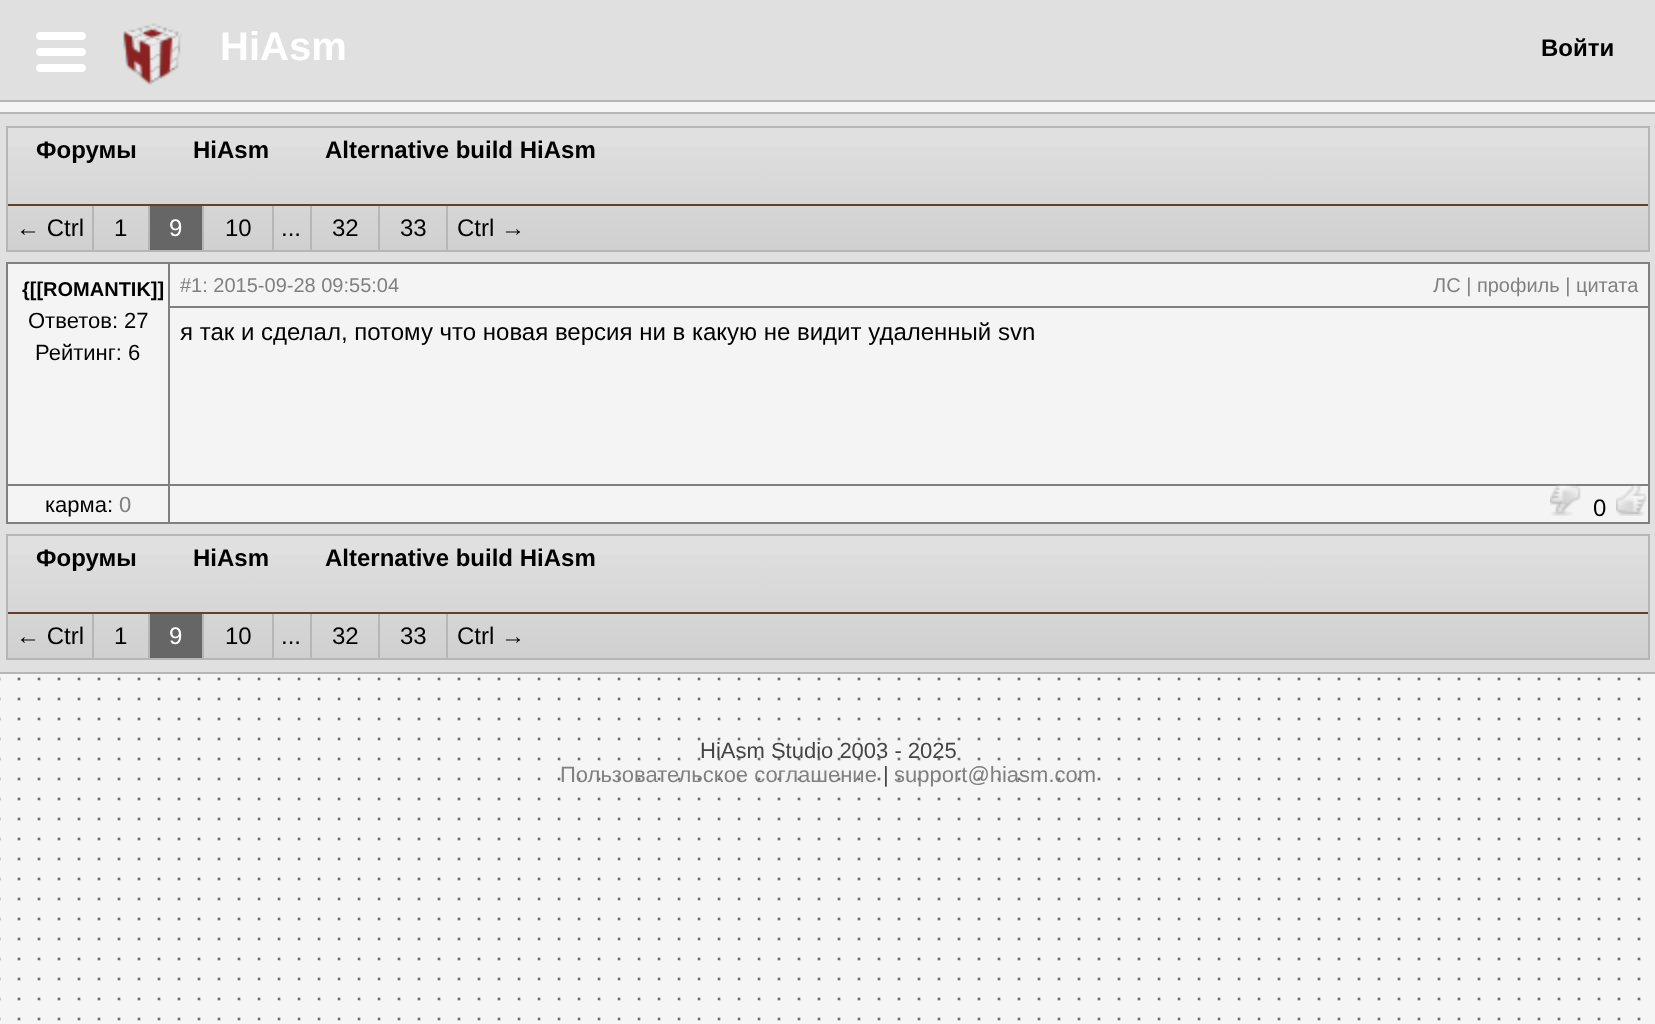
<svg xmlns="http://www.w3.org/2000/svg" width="1655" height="1024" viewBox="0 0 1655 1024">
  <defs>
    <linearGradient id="g1" gradientUnits="userSpaceOnUse" x1="8" y1="128" x2="8" y2="250"><stop offset="0" stop-color="#e0e0e0"/><stop offset="1" stop-color="#d0d0d0"/></linearGradient>
    <linearGradient id="g2" gradientUnits="userSpaceOnUse" x1="8" y1="536" x2="8" y2="658"><stop offset="0" stop-color="#e0e0e0"/><stop offset="1" stop-color="#d0d0d0"/></linearGradient>
  </defs>
  <rect width="100%" height="100%" fill="#f5f5f5"/>
  <image x="0" y="677" width="1641" height="344" href="img1.png"/>
  <rect x="0" y="0" width="1655" height="100" fill="#e0e0e0"/>
  <rect x="0" y="100" width="1655" height="2" fill="#b6b6b6"/>
  <image x="36" y="32" width="50" height="40" href="img2.png"/>
  <image x="123" y="23" width="59" height="62" href="img3.png"/>
  <text x="220" y="60" font-family="Liberation Sans" font-size="40" font-weight="bold" fill="#ffffff">HiAsm</text>
  <text x="1541" y="56" font-family="Liberation Sans" font-size="24" font-weight="bold" fill="#000000">Войти</text>
  <rect x="0" y="114" width="1655" height="558" fill="#e0e0e0"/>
  <rect x="0" y="112" width="1655" height="2" fill="#b6b6b6"/>
  <rect x="0" y="672" width="1655" height="2" fill="#b6b6b6"/>
  <rect x="8" y="147" width="1640" height="103" fill="url(#g1)"/>
  <rect x="7" y="127" width="1642" height="124" fill="none" stroke="#b6b6b6" stroke-width="2"/>
  <text x="36" y="158" font-family="Liberation Sans" font-size="24" font-weight="bold" fill="#000000">Форумы</text>
  <text x="193" y="158" font-family="Liberation Sans" font-size="24" font-weight="bold" fill="#000000">HiAsm</text>
  <text x="325" y="158" font-family="Liberation Sans" font-size="24" font-weight="bold" fill="#000000">Alternative build HiAsm</text>
  <rect x="8" y="204" width="1640" height="2" fill="#654022"/>
  <text x="16" y="236" font-family="Liberation Sans" font-size="24" fill="#000000">← Ctrl</text>
  <text x="114" y="236" font-family="Liberation Sans" font-size="24" fill="#000000">1</text>
  <rect x="92" y="206" width="2" height="44" fill="#b6b6b6"/>
  <rect x="150" y="206" width="52" height="44" fill="#666666"/>
  <text x="169" y="236" font-family="Liberation Sans" font-size="24" fill="#ffffff">9</text>
  <rect x="148" y="206" width="2" height="44" fill="#b6b6b6"/>
  <text x="225" y="236" font-family="Liberation Sans" font-size="24" fill="#000000">10</text>
  <rect x="202" y="206" width="2" height="44" fill="#b6b6b6"/>
  <text x="281" y="236" font-family="Liberation Sans" font-size="24" fill="#000000">...</text>
  <rect x="272" y="206" width="2" height="44" fill="#b6b6b6"/>
  <text x="332" y="236" font-family="Liberation Sans" font-size="24" fill="#000000">32</text>
  <rect x="310" y="206" width="2" height="44" fill="#b6b6b6"/>
  <text x="400" y="236" font-family="Liberation Sans" font-size="24" fill="#000000">33</text>
  <rect x="378" y="206" width="2" height="44" fill="#b6b6b6"/>
  <text x="457" y="236" font-family="Liberation Sans" font-size="24" fill="#000000">Ctrl →</text>
  <rect x="446" y="206" width="2" height="44" fill="#b6b6b6"/>
  <rect x="6" y="262" width="1644" height="262" fill="#808080"/>
  <rect x="8" y="264" width="160" height="220" fill="#f4f4f4"/>
  <text x="22" y="296" font-family="Liberation Sans" font-size="20" font-weight="bold" fill="#000000">{[[ROMANTIK]]</text>
  <text x="28" y="328" font-family="Liberation Sans" font-size="22" fill="#000000">Ответов: 27</text>
  <text x="35" y="360" font-family="Liberation Sans" font-size="22" fill="#000000">Рейтинг: 6</text>
  <rect x="170" y="264" width="1478" height="42" fill="#f4f4f4"/>
  <text x="180" y="292" font-family="Liberation Sans" font-size="20" fill="#808080">#1: 2015-09-28 09:55:04</text>
  <text x="1433" y="292" font-family="Liberation Sans" font-size="20" fill="#808080">ЛС | профиль | цитата</text>
  <rect x="170" y="308" width="1478" height="176" fill="#f4f4f4"/>
  <text x="180" y="340" font-family="Liberation Sans" font-size="24" fill="#000000">я так и сделал, потому что новая версия ни в какую не видит удаленный svn</text>
  <rect x="8" y="486" width="160" height="36" fill="#f4f4f4"/>
  <text x="45" y="512" font-family="Liberation Sans" font-size="22" fill="#000000">карма:</text>
  <text x="119" y="512" font-family="Liberation Sans" font-size="22" fill="#808080">0</text>
  <rect x="170" y="486" width="1478" height="36" fill="#f4f4f4"/>
  <image x="1550" y="484" width="31" height="32" href="img4.png"/>
  <text x="1593" y="516" font-family="Liberation Sans" font-size="24" fill="#000000">0</text>
  <image x="1616" y="484" width="31" height="32" href="img5.png"/>
  <rect x="8" y="555" width="1640" height="103" fill="url(#g2)"/>
  <rect x="7" y="535" width="1642" height="124" fill="none" stroke="#b6b6b6" stroke-width="2"/>
  <text x="36" y="566" font-family="Liberation Sans" font-size="24" font-weight="bold" fill="#000000">Форумы</text>
  <text x="193" y="566" font-family="Liberation Sans" font-size="24" font-weight="bold" fill="#000000">HiAsm</text>
  <text x="325" y="566" font-family="Liberation Sans" font-size="24" font-weight="bold" fill="#000000">Alternative build HiAsm</text>
  <rect x="8" y="612" width="1640" height="2" fill="#654022"/>
  <text x="16" y="644" font-family="Liberation Sans" font-size="24" fill="#000000">← Ctrl</text>
  <text x="114" y="644" font-family="Liberation Sans" font-size="24" fill="#000000">1</text>
  <rect x="92" y="614" width="2" height="44" fill="#b6b6b6"/>
  <rect x="150" y="614" width="52" height="44" fill="#666666"/>
  <text x="169" y="644" font-family="Liberation Sans" font-size="24" fill="#ffffff">9</text>
  <rect x="148" y="614" width="2" height="44" fill="#b6b6b6"/>
  <text x="225" y="644" font-family="Liberation Sans" font-size="24" fill="#000000">10</text>
  <rect x="202" y="614" width="2" height="44" fill="#b6b6b6"/>
  <text x="281" y="644" font-family="Liberation Sans" font-size="24" fill="#000000">...</text>
  <rect x="272" y="614" width="2" height="44" fill="#b6b6b6"/>
  <text x="332" y="644" font-family="Liberation Sans" font-size="24" fill="#000000">32</text>
  <rect x="310" y="614" width="2" height="44" fill="#b6b6b6"/>
  <text x="400" y="644" font-family="Liberation Sans" font-size="24" fill="#000000">33</text>
  <rect x="378" y="614" width="2" height="44" fill="#b6b6b6"/>
  <text x="457" y="644" font-family="Liberation Sans" font-size="24" fill="#000000">Ctrl →</text>
  <rect x="446" y="614" width="2" height="44" fill="#b6b6b6"/>
  <text x="700" y="758" font-family="Liberation Sans" font-size="22" fill="#444444">HiAsm Studio 2003 - 2025</text>
  <text x="560" y="782" font-family="Liberation Sans" font-size="22" fill="#808080">Пользовательское соглашение</text>
  <text x="883" y="782" font-family="Liberation Sans" font-size="22" fill="#444444">|</text>
  <text x="894" y="782" font-family="Liberation Sans" font-size="22" fill="#808080">support@hiasm.com</text>
</svg>
